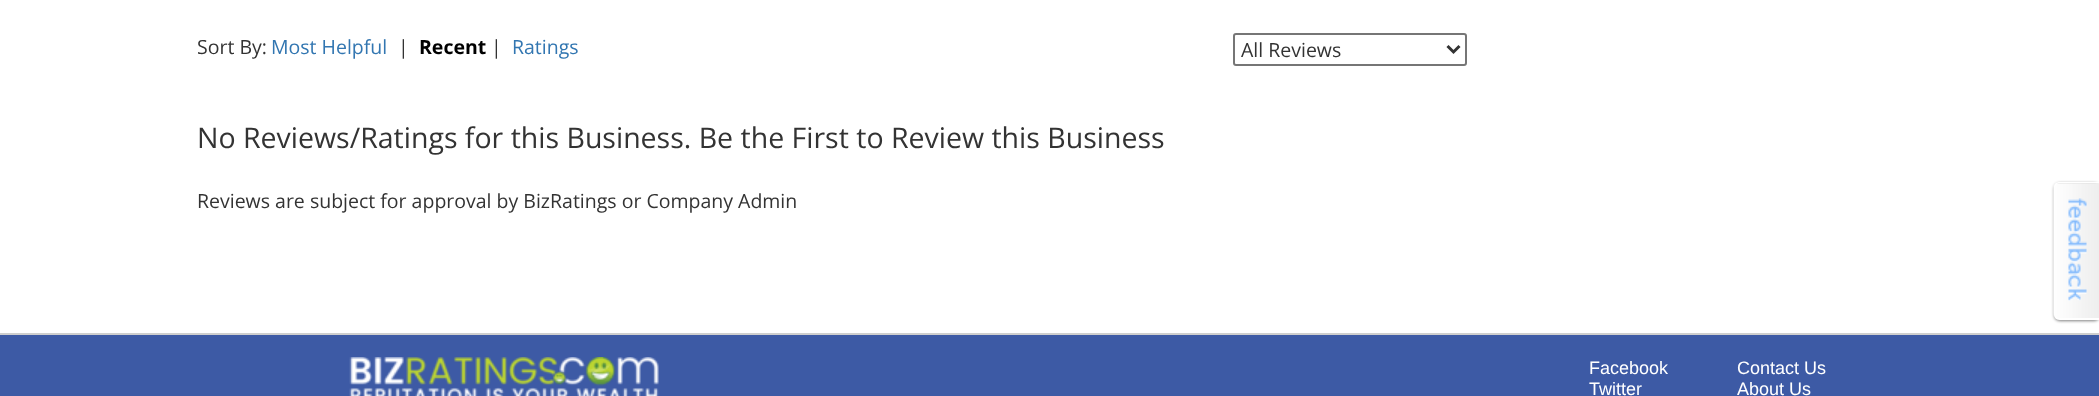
<svg xmlns="http://www.w3.org/2000/svg" width="2099" height="396" viewBox="0 0 2099 396">
  <defs>
    <filter id="blur1" x="-50%" y="-200%" width="200%" height="500%"><feGaussianBlur stdDeviation="1.5"/></filter>
  </defs>
  <rect width="100%" height="100%" fill="#ffffff"/>
  <text x="197" y="54" font-family="Open Sans" font-size="19.5" fill="#333333">Sort By:</text>
  <text x="271" y="54" font-family="Open Sans" font-size="19.5" fill="#3276b1">Most Helpful</text>
  <text x="398" y="54" font-family="Open Sans" font-size="19.5" fill="#333333">|</text>
  <text x="419" y="54" font-family="Open Sans" font-size="19.5" font-weight="bold" fill="#000000">Recent</text>
  <text x="491" y="54" font-family="Open Sans" font-size="19.5" fill="#333333">|</text>
  <text x="512" y="54" font-family="Open Sans" font-size="19.5" fill="#3276b1">Ratings</text>
  <rect x="1234" y="34" width="232" height="31" rx="2" fill="none" stroke="#767676" stroke-width="2"/>
  <path d="M1447.5 46L1453.5 52L1459.5 46" fill="none" stroke="#333333" stroke-width="3"/>
  <text x="1241" y="57" font-family="Open Sans" font-size="19.5" fill="#333333">All Reviews</text>
  <text x="197" y="148" font-family="Open Sans" font-size="28.5" fill="#333333">No Reviews/Ratings for this Business. Be the First to Review this Business</text>
  <text x="197" y="208" font-family="Open Sans" font-size="19.5" fill="#333333">Reviews are subject for approval by BizRatings or Company Admin</text>
  <rect x="2054" y="183" width="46" height="138" rx="6" fill="#000000" fill-opacity="0.5" filter="url(#blur1)"/>
  <image x="2053" y="182" width="46" height="138" href="img1.png"/>
  <path d="M2061 184H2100V183H2060C2057 183 2055 185 2055 188V313C2055 314 2056 316 2056 317C2053 310 2056 302 2056 294V189L2058 186Z" fill="#ffffff" fill-opacity="0.25"/>
  <path d="M2060 182H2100V320H2060C2056 320 2054 317 2054 314V188C2054 184 2056 182 2060 182ZM2060 183H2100V318H2060C2057 318 2055 316 2055 314V188C2055 185 2057 183 2060 183Z" fill="#ffffff" fill-rule="evenodd"/>
  <image x="2068" y="198" width="19" height="103" href="img2.png"/>
  <rect x="0" y="335" width="2099" height="61" fill="#3d5aa5"/>
  <rect x="0" y="333" width="2099" height="2" fill="#cecece"/>
  <image x="349" y="357" width="310" height="39" href="img3.png"/>
  <text x="1589" y="374" font-family="Liberation Sans" font-size="18" fill="#ffffff">Facebook</text>
  <text x="1589" y="395" font-family="Liberation Sans" font-size="18" fill="#ffffff">Twitter</text>
  <text x="1737" y="374" font-family="Liberation Sans" font-size="18" fill="#ffffff">Contact Us</text>
  <text x="1737" y="395" font-family="Liberation Sans" font-size="18" fill="#ffffff">About Us</text>
</svg>
